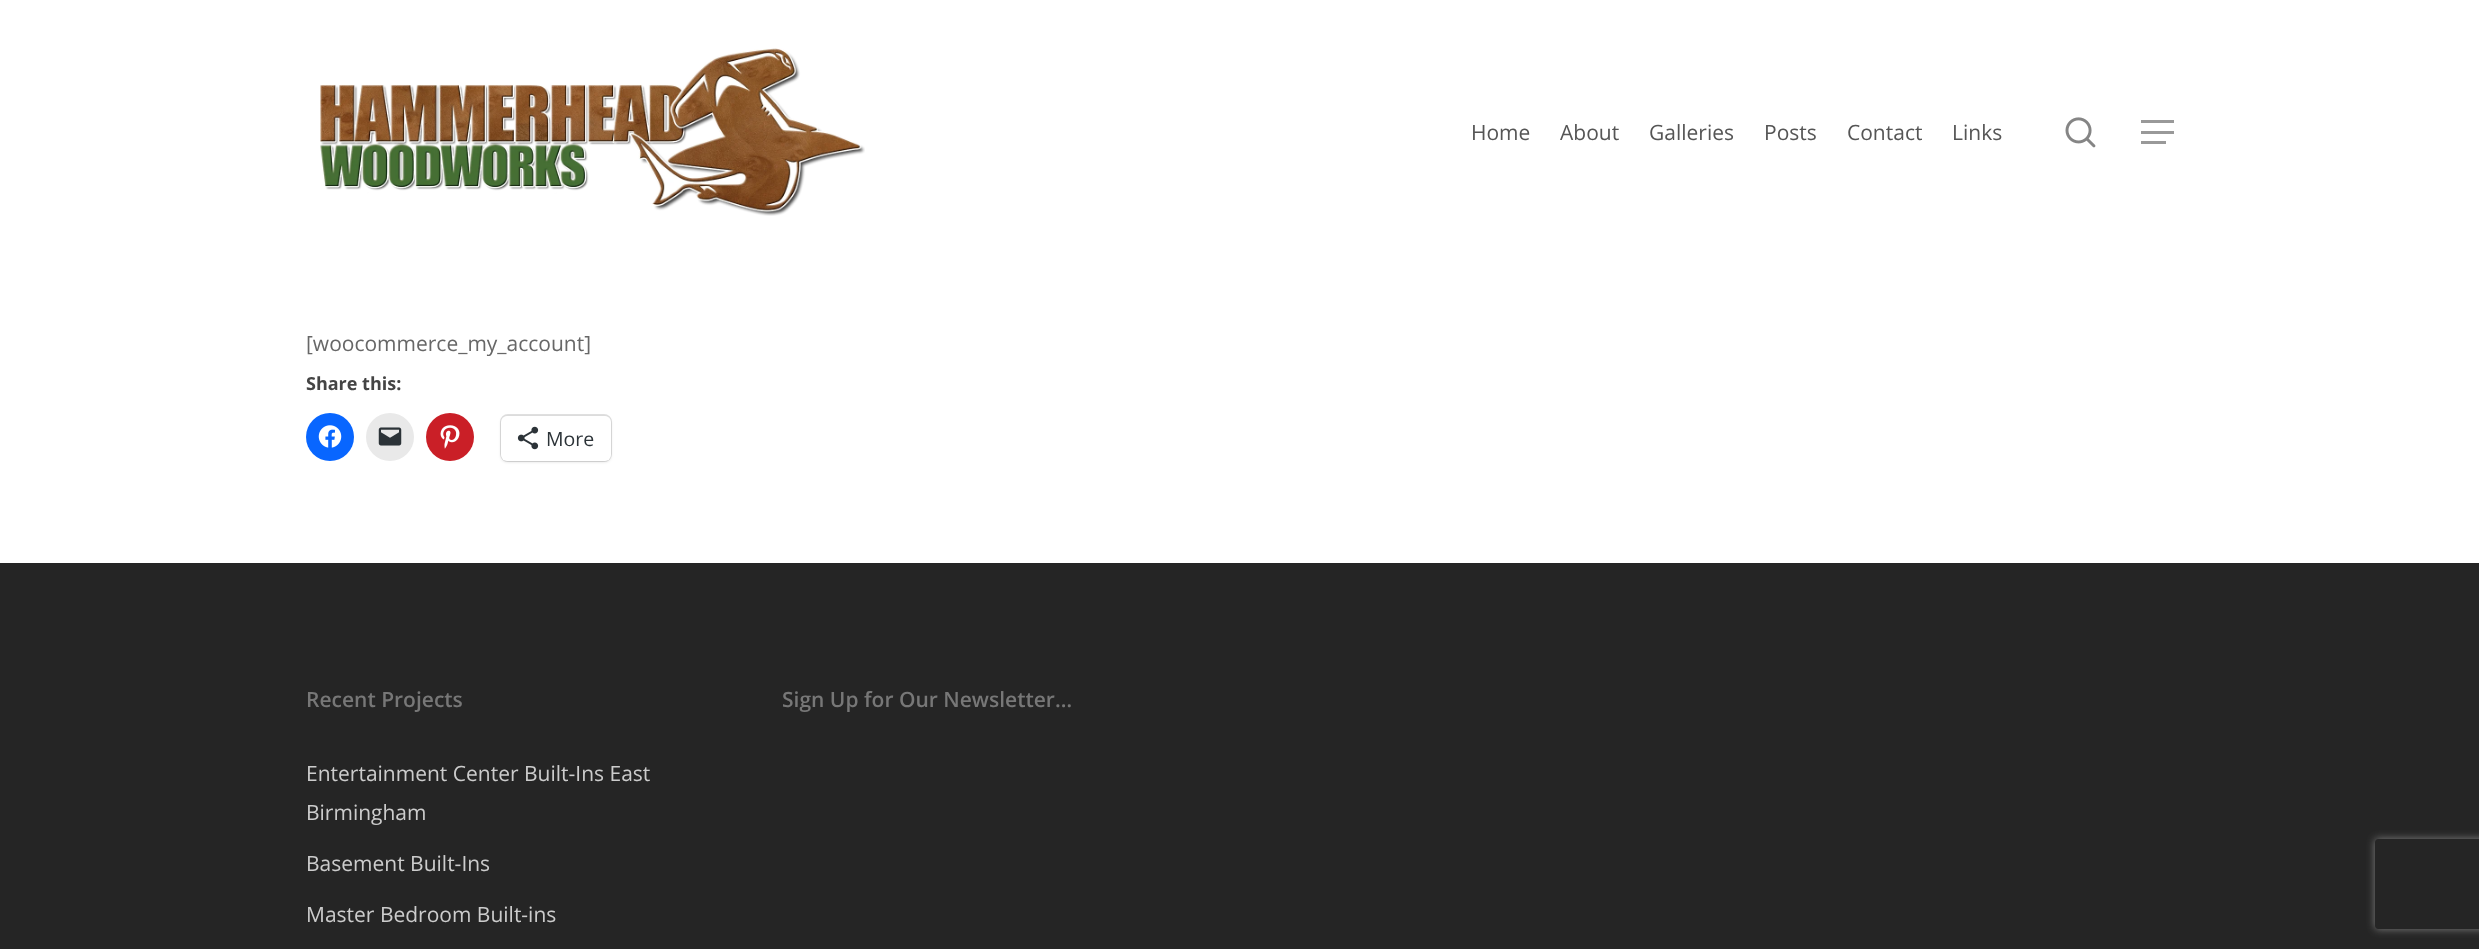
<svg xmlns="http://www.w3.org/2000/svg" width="2479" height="949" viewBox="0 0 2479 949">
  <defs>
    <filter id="blur1" x="-50%" y="-200%" width="200%" height="500%"><feGaussianBlur stdDeviation="1.5"/></filter>
    <clipPath id="clip1"><path d="M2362 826H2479V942H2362ZM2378 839H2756C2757.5 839 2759 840.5 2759 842V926C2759 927.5 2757.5 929 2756 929H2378C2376.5 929 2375 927.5 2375 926V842C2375 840.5 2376.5 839 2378 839Z" clip-rule="evenodd"/></clipPath>
    <filter id="blur2" x="-50%" y="-200%" width="200%" height="500%"><feGaussianBlur stdDeviation="4"/></filter>
  </defs>
  <rect width="100%" height="100%" fill="#ffffff"/>
  <image x="320" y="48" width="545" height="168" href="img1.png"/>
  <text x="1471" y="140" font-family="Open Sans" font-size="21" fill="#555555">Home</text>
  <text x="1560" y="140" font-family="Open Sans" font-size="21" fill="#555555">About</text>
  <text x="1649" y="140" font-family="Open Sans" font-size="21" fill="#555555">Galleries</text>
  <text x="1764" y="140" font-family="Open Sans" font-size="21" fill="#555555">Posts</text>
  <text x="1847" y="140" font-family="Open Sans" font-size="21" fill="#555555">Contact</text>
  <text x="1952" y="140" font-family="Open Sans" font-size="21" fill="#555555">Links</text>
  <image x="2065" y="117" width="31" height="31" href="img2.png"/>
  <rect x="2141" y="120" width="33" height="3" fill="#999999"/>
  <rect x="2141" y="141" width="25" height="3" fill="#999999"/>
  <rect x="2141" y="131" width="33" height="3" fill="#999999"/>
  <text x="306" y="351" font-family="Open Sans" font-size="21" fill="#676767">[woocommerce_my_account]</text>
  <text x="306" y="390" font-family="Open Sans" font-size="18" font-weight="bold" fill="#444444">Share this:</text>
  <circle cx="330" cy="437" r="24" fill="#0866ff"/>
  <image x="318" y="425" width="24" height="23" href="img3.png"/>
  <circle cx="390" cy="437" r="24" fill="#e9e9e9"/>
  <image x="378" y="427" width="24" height="19" href="img4.png"/>
  <circle cx="450" cy="437" r="24" fill="#ca1f27"/>
  <image x="440" y="425" width="20" height="24" href="img5.png"/>
  <rect x="501" y="415" width="110" height="46" rx="7" fill="none" stroke="#e0e0e0" stroke-width="2"/>
  <rect x="501" y="417" width="110" height="45" rx="6" fill="#000000" fill-opacity="0.12" filter="url(#blur1)"/>
  <rect x="501" y="416" width="110" height="45" rx="6" fill="#ffffff"/>
  <image x="517" y="426" width="22" height="24" href="img6.png"/>
  <text x="546" y="446" font-family="Open Sans" font-size="19.5" fill="#2c3338">More</text>
  <rect x="0" y="563" width="2479" height="386" fill="#252525"/>
  <text x="306" y="707" font-family="Open Sans" font-size="21" font-weight="600" fill="#777777">Recent Projects</text>
  <text x="306" y="781" font-family="Open Sans" font-size="21" fill="#cccccc">Entertainment Center Built-Ins East</text>
  <text x="306" y="820" font-family="Open Sans" font-size="21" fill="#cccccc">Birmingham</text>
  <text x="306" y="871" font-family="Open Sans" font-size="21" fill="#cccccc">Basement Built-Ins</text>
  <text x="306" y="922" font-family="Open Sans" font-size="21" fill="#cccccc">Master Bedroom Built-ins</text>
  <text x="782" y="707" font-family="Open Sans" font-size="21" font-weight="600" fill="#777777">Sign Up for Our Newsletter…</text>
  <g clip-path="url(#clip1)">
    <rect x="2375" y="839" width="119" height="90" rx="3" fill="#808080" filter="url(#blur2)"/>
  </g>
</svg>
